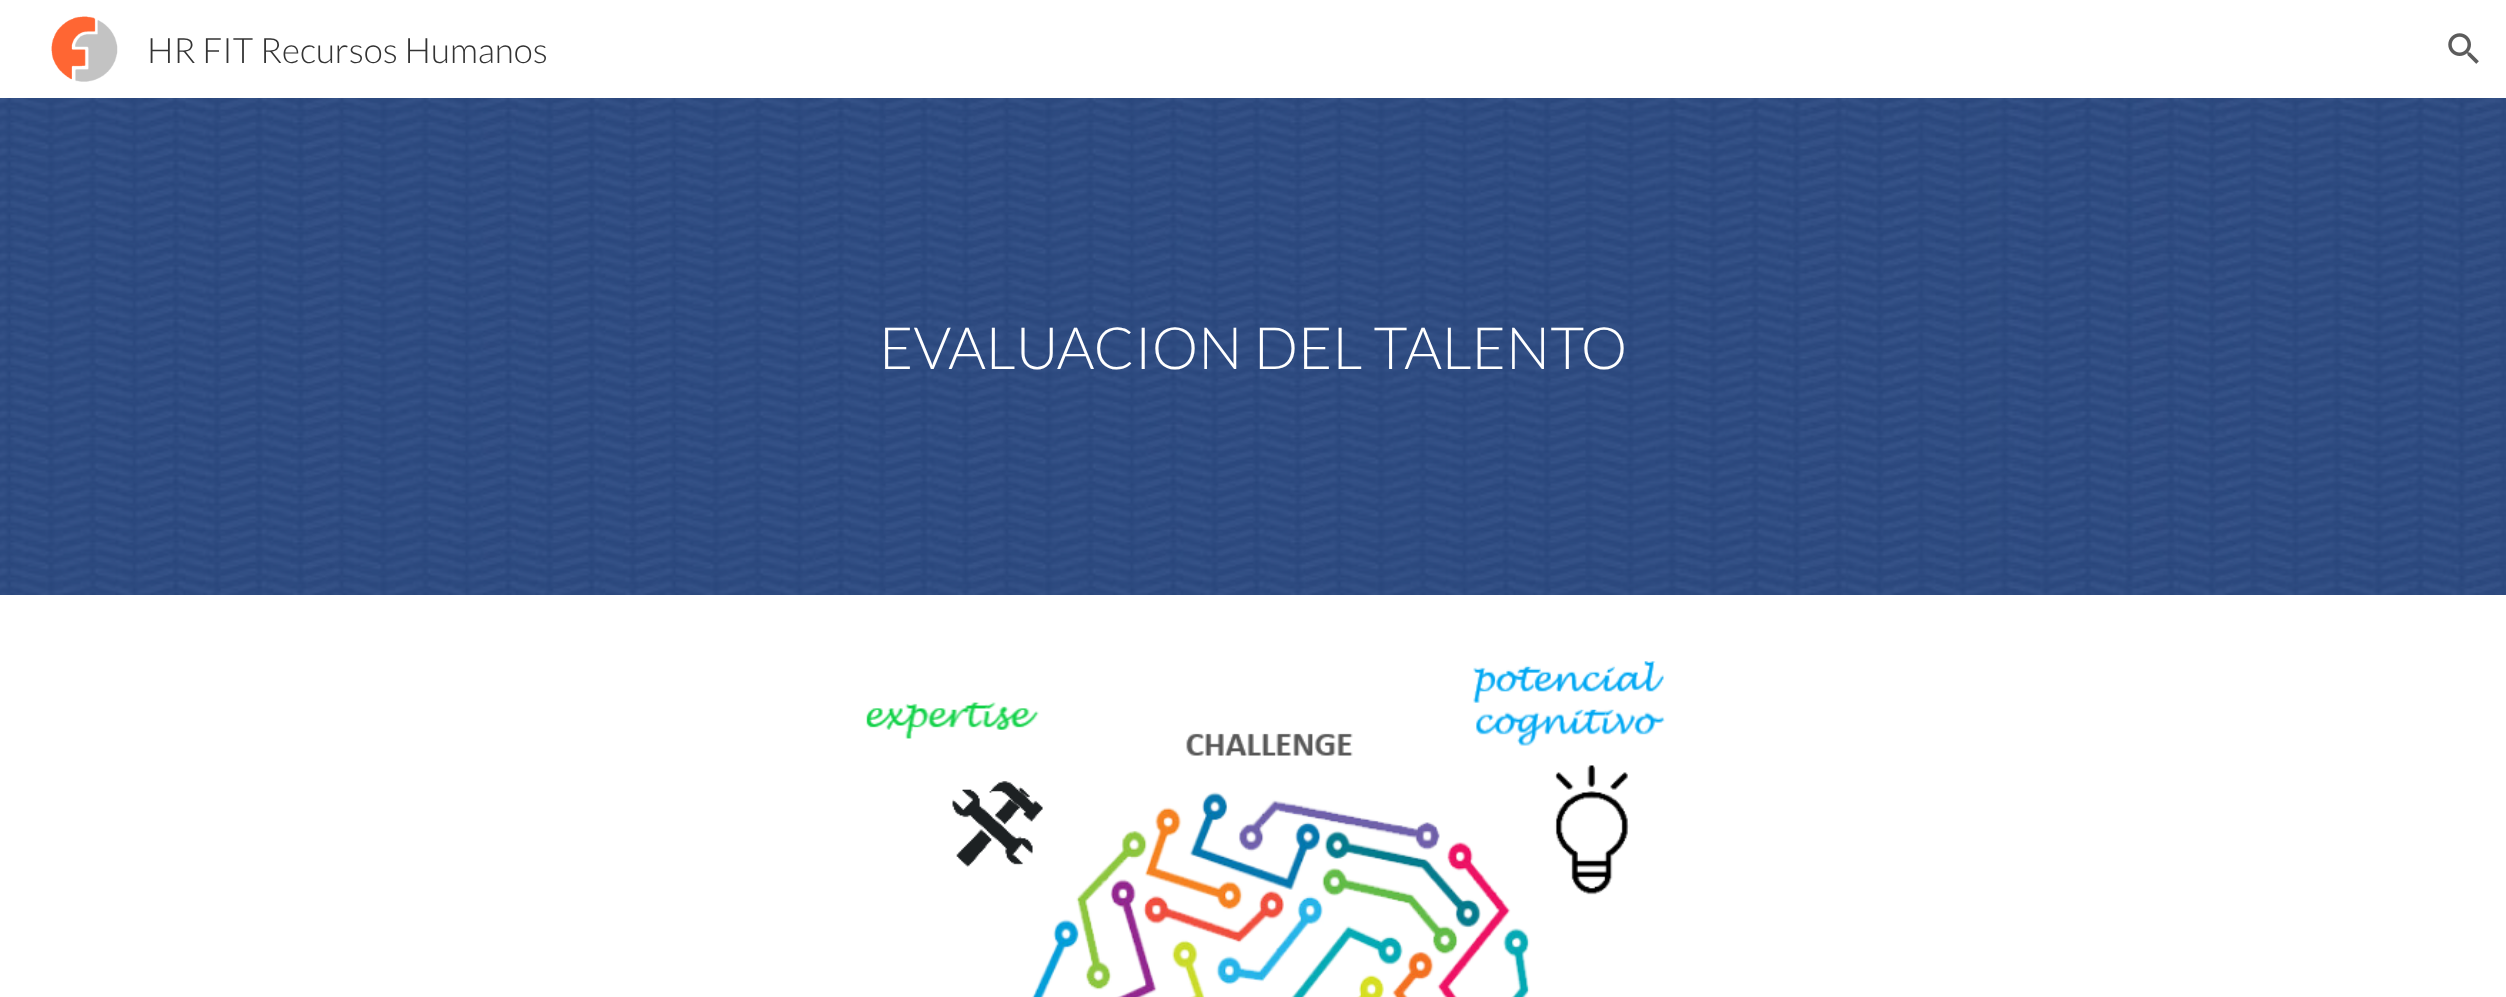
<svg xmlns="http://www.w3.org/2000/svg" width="2506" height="997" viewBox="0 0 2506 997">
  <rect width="100%" height="100%" fill="#ffffff"/>
  <image x="51" y="16" width="67" height="66" href="img1.png"/>
  <text x="147" y="63" font-family="Lato" font-size="35" font-weight="300" fill="#333333">HR FIT Recursos Humanos</text>
  <image x="2448" y="33" width="31" height="31" href="img2.png"/>
  <image x="0" y="98" width="2506" height="497" href="img3.png"/>
  <text x="879" y="369" font-family="Lato" font-size="58.3" font-weight="300" fill="#ffffff">EVALUACION DEL TALENTO</text>
  <image x="866" y="661" width="799" height="336" href="img4.png"/>
</svg>
